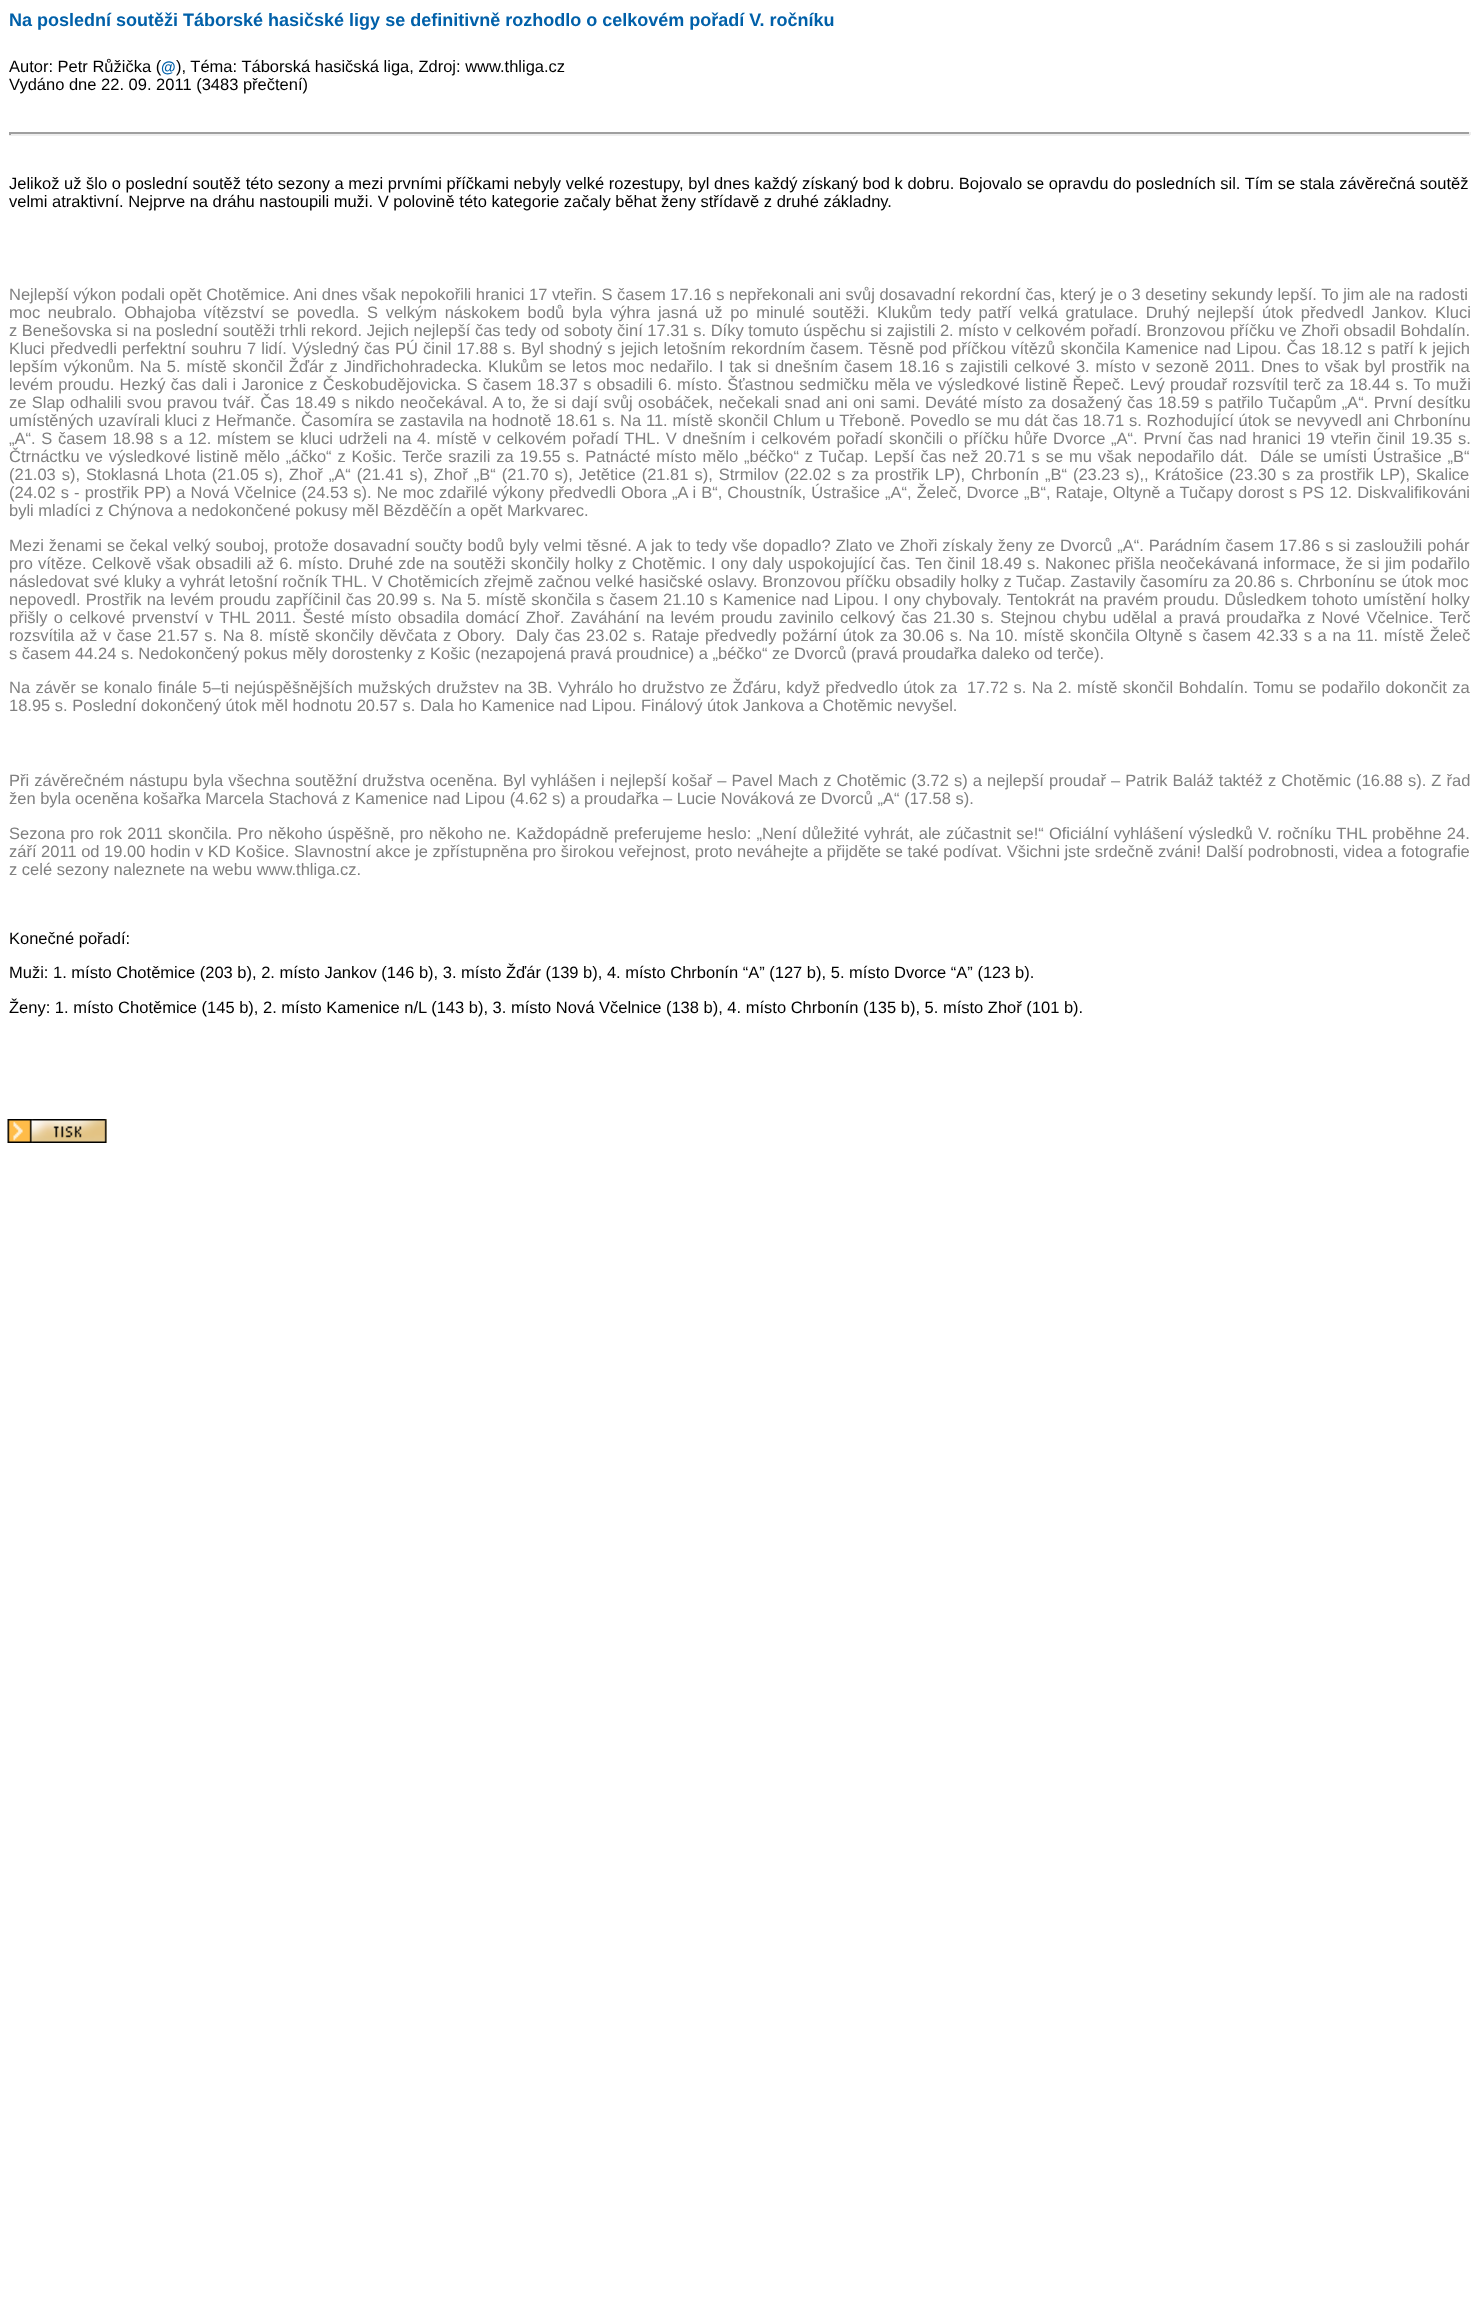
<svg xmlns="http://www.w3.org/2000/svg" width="1478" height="2303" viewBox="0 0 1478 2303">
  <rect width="100%" height="100%" fill="#ffffff"/>
  <text x="9" y="26" font-family="Liberation Sans" font-size="18" font-weight="bold" fill="#0060a9">Na poslední soutěži Táborské hasičské ligy se definitivně rozhodlo o celkovém pořadí V. ročníku</text>
  <text x="9" y="72" font-family="Liberation Sans" font-size="16.5" fill="#000000">Autor: Petr Růžička (</text>
  <text x="161" y="72" font-family="Liberation Sans" font-size="15" font-weight="bold" fill="#0060a9">@</text>
  <text x="176" y="72" font-family="Liberation Sans" font-size="16.5" fill="#000000">), Téma: Táborská hasičská liga, Zdroj: www.thliga.cz</text>
  <text x="9" y="90" font-family="Liberation Sans" font-size="16.5" fill="#000000">Vydáno dne 22. 09. 2011 (3483 přečtení)</text>
  <rect x="9" y="132" width="1461" height="2" fill="#9f9f9f"/>
  <rect x="1469" y="132" width="2" height="3" fill="#eeeeee"/>
  <rect x="9" y="134" width="1461" height="2" fill="#eeeeee"/>
  <rect x="9" y="132" width="2" height="3" fill="#9f9f9f"/>
  <text x="9" y="189" font-family="Liberation Sans" font-size="16.5" fill="#000000">Jelikož už šlo o poslední soutěž této sezony a mezi prvními příčkami nebyly velké rozestupy, byl dnes každý získaný bod k dobru. Bojovalo se opravdu do posledních sil. Tím se stala závěrečná soutěž</text>
  <text x="9" y="207" font-family="Liberation Sans" font-size="16.5" fill="#000000">velmi atraktivní. Nejprve na dráhu nastoupili muži. V polovině této kategorie začaly běhat ženy střídavě z druhé základny.</text>
  <text x="9" y="300" font-family="Liberation Sans" font-size="16.5" fill="#808080">Nejlepší výkon podali opět Chotěmice. Ani dnes však nepokořili hranici 17 vteřin. S časem 17.16 s nepřekonali ani svůj dosavadní rekordní čas, který je o 3 desetiny sekundy lepší. To jim ale na radosti</text>
  <text x="9" y="318" word-spacing="3.1" font-family="Liberation Sans" font-size="16.5" fill="#808080">moc neubralo. Obhajoba vítězství se povedla. S velkým náskokem bodů byla výhra jasná už po minulé soutěži. Klukům tedy patří velká gratulace. Druhý nejlepší útok předvedl Jankov. Kluci</text>
  <text x="9" y="336" font-family="Liberation Sans" font-size="16.5" fill="#808080">z Benešovska si na poslední soutěži trhli rekord. Jejich nejlepší čas tedy od soboty činí 17.31 s. Díky tomuto úspěchu si zajistili 2. místo v celkovém pořadí. Bronzovou příčku ve Zhoři obsadil Bohdalín.</text>
  <text x="9" y="354" word-spacing="0.55" font-family="Liberation Sans" font-size="16.5" fill="#808080">Kluci předvedli perfektní souhru 7 lidí. Výsledný čas PÚ činil 17.88 s. Byl shodný s jejich letošním rekordním časem. Těsně pod příčkou vítězů skončila Kamenice nad Lipou. Čas 18.12 s patří k jejich</text>
  <text x="9" y="372" word-spacing="1.25" font-family="Liberation Sans" font-size="16.5" fill="#808080">lepším výkonům. Na 5. místě skončil Žďár z Jindřichohradecka. Klukům se letos moc nedařilo. I tak si dnešním časem 18.16 s zajistili celkové 3. místo v sezoně 2011. Dnes to však byl prostřik na</text>
  <text x="9" y="390" word-spacing="0.7" font-family="Liberation Sans" font-size="16.5" fill="#808080">levém proudu. Hezký čas dali i Jaronice z Českobudějovicka. S časem 18.37 s obsadili 6. místo. Šťastnou sedmičku měla ve výsledkové listině Řepeč. Levý proudař rozsvítil terč za 18.44 s. To muži</text>
  <text x="9" y="408" word-spacing="0.75" font-family="Liberation Sans" font-size="16.5" fill="#808080">ze Slap odhalili svou pravou tvář. Čas 18.49 s nikdo neočekával. A to, že si dají svůj osobáček, nečekali snad ani oni sami. Deváté místo za dosažený čas 18.59 s patřilo Tučapům „A“. První desítku</text>
  <text x="9" y="426" word-spacing="0.25" font-family="Liberation Sans" font-size="16.5" fill="#808080">umístěných uzavírali kluci z Heřmanče. Časomíra se zastavila na hodnotě 18.61 s. Na 11. místě skončil Chlum u Třeboně. Povedlo se mu dát čas 18.71 s. Rozhodující útok se nevyvedl ani Chrbonínu</text>
  <text x="9" y="444" word-spacing="1.15" font-family="Liberation Sans" font-size="16.5" fill="#808080">„A“. S časem 18.98 s a 12. místem se kluci udrželi na 4. místě v celkovém pořadí THL. V dnešním i celkovém pořadí skončili o příčku hůře Dvorce „A“. První čas nad hranici 19 vteřin činil 19.35 s.</text>
  <text x="9" y="462" word-spacing="1.25" font-family="Liberation Sans" font-size="16.5" fill="#808080">Čtrnáctku ve výsledkové listině mělo „áčko“ z Košic. Terče srazili za 19.55 s. Patnácté místo mělo „béčko“ z Tučap. Lepší čas než 20.71 s se mu však nepodařilo dát.</text>
  <text x="1260" y="462" word-spacing="1.25" font-family="Liberation Sans" font-size="16.5" fill="#808080">Dále se umísti Ústrašice „B“</text>
  <text x="9" y="480" word-spacing="1.4" font-family="Liberation Sans" font-size="16.5" fill="#808080">(21.03 s), Stoklasná Lhota (21.05 s), Zhoř „A“ (21.41 s), Zhoř „B“ (21.70 s), Jetětice (21.81 s), Strmilov (22.02 s za prostřik LP), Chrbonín „B“ (23.23 s),, Krátošice (23.30 s za prostřik LP), Skalice</text>
  <text x="9" y="498" word-spacing="0.45" font-family="Liberation Sans" font-size="16.5" fill="#808080">(24.02 s - prostřik PP) a Nová Včelnice (24.53 s). Ne moc zdařilé výkony předvedli Obora „A i B“, Choustník, Ústrašice „A“, Želeč, Dvorce „B“, Rataje, Oltyně a Tučapy dorost s PS 12. Diskvalifikováni</text>
  <text x="9" y="516" font-family="Liberation Sans" font-size="16.5" fill="#808080">byli mladíci z Chýnova a nedokončené pokusy měl Bězděčín a opět Markvarec.</text>
  <text x="9" y="551" word-spacing="0.4" font-family="Liberation Sans" font-size="16.5" fill="#808080">Mezi ženami se čekal velký souboj, protože dosavadní součty bodů byly velmi těsné. A jak to tedy vše dopadlo? Zlato ve Zhoři získaly ženy ze Dvorců „A“. Parádním časem 17.86 s si zasloužili pohár</text>
  <text x="9" y="569" word-spacing="0.55" font-family="Liberation Sans" font-size="16.5" fill="#808080">pro vítěze. Celkově však obsadili až 6. místo. Druhé zde na soutěži skončily holky z Chotěmic. I ony daly uspokojující čas. Ten činil 18.49 s. Nakonec přišla neočekávaná informace, že si jim podařilo</text>
  <text x="9" y="587" font-family="Liberation Sans" font-size="16.5" fill="#808080">následovat své kluky a vyhrát letošní ročník THL. V Chotěmicích zřejmě začnou velké hasičské oslavy. Bronzovou příčku obsadily holky z Tučap. Zastavily časomíru za 20.86 s. Chrbonínu se útok moc</text>
  <text x="9" y="605" word-spacing="0.5" font-family="Liberation Sans" font-size="16.5" fill="#808080">nepovedl. Prostřik na levém proudu zapříčinil čas 20.99 s. Na 5. místě skončila s časem 21.10 s Kamenice nad Lipou. I ony chybovaly. Tentokrát na pravém proudu. Důsledkem tohoto umístění holky</text>
  <text x="9" y="623" word-spacing="1.75" font-family="Liberation Sans" font-size="16.5" fill="#808080">přišly o celkové prvenství v THL 2011. Šesté místo obsadila domácí Zhoř. Zaváhání na levém proudu zavinilo celkový čas 21.30 s. Stejnou chybu udělal a pravá proudařka z Nové Včelnice. Terč</text>
  <text x="9" y="641" word-spacing="1.1" font-family="Liberation Sans" font-size="16.5" fill="#808080">rozsvítila až v čase 21.57 s. Na 8. místě skončily děvčata z Obory.</text>
  <text x="516" y="641" word-spacing="1.1" font-family="Liberation Sans" font-size="16.5" fill="#808080">Daly čas 23.02 s. Rataje předvedly požární útok za 30.06 s. Na 10. místě skončila Oltyně s časem 42.33 s a na 11. místě Želeč</text>
  <text x="9" y="659" font-family="Liberation Sans" font-size="16.5" fill="#808080">s časem 44.24 s. Nedokončený pokus měly dorostenky z Košic (nezapojená pravá proudnice) a „béčko“ ze Dvorců (pravá proudařka daleko od terče).</text>
  <text x="9" y="693" word-spacing="0.7" font-family="Liberation Sans" font-size="16.5" fill="#808080">Na závěr se konalo finále 5–ti nejúspěšnějších mužských družstev na 3B. Vyhrálo ho družstvo ze Žďáru, když předvedlo útok za</text>
  <text x="967" y="693" word-spacing="0.7" font-family="Liberation Sans" font-size="16.5" fill="#808080">17.72 s. Na 2. místě skončil Bohdalín. Tomu se podařilo dokončit za</text>
  <text x="9" y="711" font-family="Liberation Sans" font-size="16.5" fill="#808080">18.95 s. Poslední dokončený útok měl hodnotu 20.57 s. Dala ho Kamenice nad Lipou. Finálový útok Jankova a Chotěmic nevyšel.</text>
  <text x="9" y="786" word-spacing="0.5" font-family="Liberation Sans" font-size="16.5" fill="#808080">Při závěrečném nástupu byla všechna soutěžní družstva oceněna. Byl vyhlášen i nejlepší košař – Pavel Mach z Chotěmic (3.72 s) a nejlepší proudař – Patrik Baláž taktéž z Chotěmic (16.88 s). Z řad</text>
  <text x="9" y="804" font-family="Liberation Sans" font-size="16.5" fill="#808080">žen byla oceněna košařka Marcela Stachová z Kamenice nad Lipou (4.62 s) a proudařka – Lucie Nováková ze Dvorců „A“ (17.58 s).</text>
  <text x="9" y="839" word-spacing="0.6" font-family="Liberation Sans" font-size="16.5" fill="#808080">Sezona pro rok 2011 skončila. Pro někoho úspěšně, pro někoho ne. Každopádně preferujeme heslo: „Není důležité vyhrát, ale zúčastnit se!“ Oficiální vyhlášení výsledků V. ročníku THL proběhne 24.</text>
  <text x="9" y="857" font-family="Liberation Sans" font-size="16.5" fill="#808080">září 2011 od 19.00 hodin v KD Košice. Slavnostní akce je zpřístupněna pro širokou veřejnost, proto neváhejte a přijděte se také podívat. Všichni jste srdečně zváni! Další podrobnosti, videa a fotografie</text>
  <text x="9" y="875" font-family="Liberation Sans" font-size="16.5" fill="#808080">z celé sezony naleznete na webu www.thliga.cz.</text>
  <text x="9" y="944" font-family="Liberation Sans" font-size="16.5" fill="#000000">Konečné pořadí:</text>
  <text x="9" y="978" font-family="Liberation Sans" font-size="16.5" fill="#000000">Muži: 1. místo Chotěmice (203 b), 2. místo Jankov (146 b), 3. místo Žďár (139 b), 4. místo Chrbonín “A” (127 b), 5. místo Dvorce “A” (123 b).</text>
  <text x="9" y="1013" font-family="Liberation Sans" font-size="16.5" fill="#000000">Ženy: 1. místo Chotěmice (145 b), 2. místo Kamenice n/L (143 b), 3. místo Nová Včelnice (138 b), 4. místo Chrbonín (135 b), 5. místo Zhoř (101 b).</text>
  <rect x="106" y="1119" width="1" height="24" fill="#ebdeb8"/>
  <image x="7" y="1119" width="100" height="24" href="img1.png"/>
</svg>
